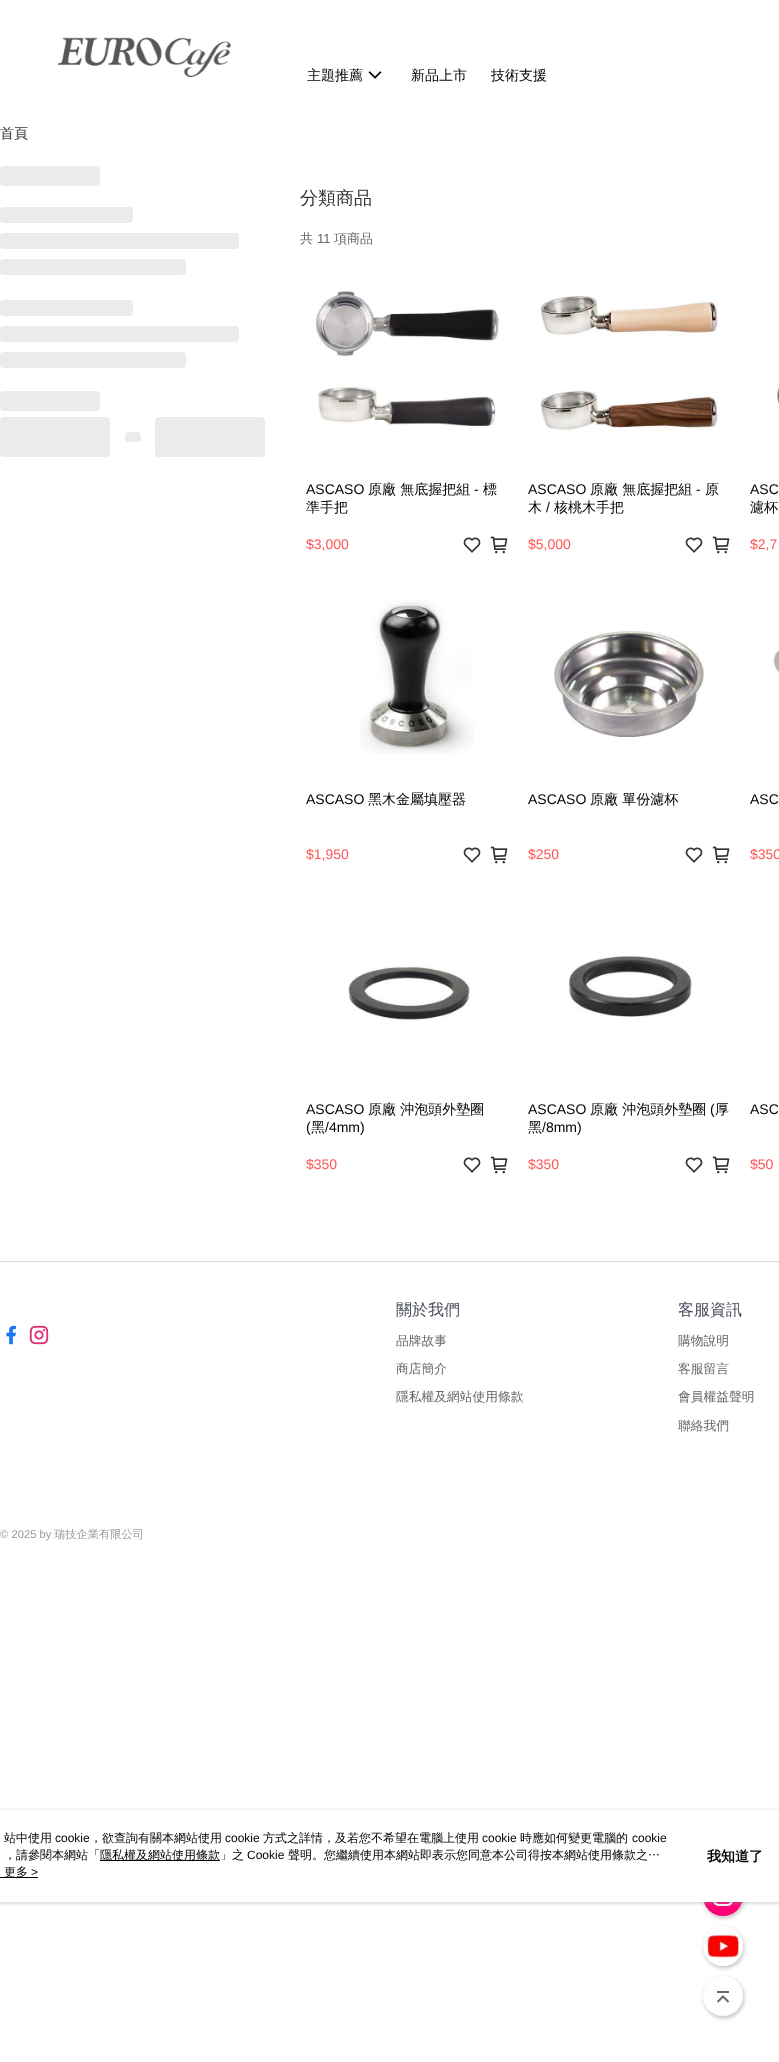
<svg xmlns="http://www.w3.org/2000/svg" width="779" height="2062" viewBox="0 0 779 2062">
  <defs>
    <filter id="blur1" x="-50%" y="-200%" width="200%" height="500%"><feGaussianBlur stdDeviation="2"/></filter>
    <clipPath id="clip1"><rect x="0" y="207" width="133" height="16" rx="4"/></clipPath>
    <linearGradient id="g1" gradientUnits="userSpaceOnUse" x1="-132" y1="215" x2="0.5" y2="215"><stop offset="0" stop-color="#ebebeb"/><stop offset="0.5" stop-color="#f5f5f5"/><stop offset="1" stop-color="#ebebeb"/></linearGradient>
    <clipPath id="clip2"><rect x="0" y="233" width="239" height="16" rx="4"/></clipPath>
    <linearGradient id="g2" gradientUnits="userSpaceOnUse" x1="-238" y1="241" x2="0.5" y2="241"><stop offset="0" stop-color="#ebebeb"/><stop offset="0.5" stop-color="#f5f5f5"/><stop offset="1" stop-color="#ebebeb"/></linearGradient>
    <clipPath id="clip3"><rect x="0" y="259" width="186" height="16" rx="4"/></clipPath>
    <linearGradient id="g3" gradientUnits="userSpaceOnUse" x1="-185" y1="267" x2="0.5" y2="267"><stop offset="0" stop-color="#ebebeb"/><stop offset="0.5" stop-color="#f5f5f5"/><stop offset="1" stop-color="#ebebeb"/></linearGradient>
    <clipPath id="clip4"><rect x="0" y="300" width="133" height="16" rx="4"/></clipPath>
    <linearGradient id="g4" gradientUnits="userSpaceOnUse" x1="-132" y1="308" x2="0.5" y2="308"><stop offset="0" stop-color="#ebebeb"/><stop offset="0.5" stop-color="#f5f5f5"/><stop offset="1" stop-color="#ebebeb"/></linearGradient>
    <clipPath id="clip5"><rect x="0" y="326" width="239" height="16" rx="4"/></clipPath>
    <linearGradient id="g5" gradientUnits="userSpaceOnUse" x1="-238" y1="334" x2="0.5" y2="334"><stop offset="0" stop-color="#ebebeb"/><stop offset="0.5" stop-color="#f5f5f5"/><stop offset="1" stop-color="#ebebeb"/></linearGradient>
    <clipPath id="clip6"><rect x="0" y="352" width="186" height="16" rx="4"/></clipPath>
    <linearGradient id="g6" gradientUnits="userSpaceOnUse" x1="-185" y1="360" x2="0.5" y2="360"><stop offset="0" stop-color="#ebebeb"/><stop offset="0.5" stop-color="#f5f5f5"/><stop offset="1" stop-color="#ebebeb"/></linearGradient>
  </defs>
  <rect width="100%" height="100%" fill="#ffffff"/>
  <image x="58" y="37" width="173" height="40" href="img1.png"/>
  <text x="307" y="80" font-family="WenQuanYi Zen Hei" font-size="14" font-weight="500" fill="#000000">主題推薦</text>
  <image x="368" y="71" width="14" height="8" href="img2.png"/>
  <text x="411" y="80" font-family="WenQuanYi Zen Hei" font-size="14" font-weight="500" fill="#000000">新品上市</text>
  <text x="491" y="80" font-family="WenQuanYi Zen Hei" font-size="14" font-weight="500" fill="#000000">技術支援</text>
  <rect x="704" y="1878" width="40" height="40" rx="20" fill="#000000" fill-opacity="0.25" filter="url(#blur1)"/>
  <circle cx="723" cy="1896" r="20" fill="#ff0076"/>
  <image x="713" y="1902" width="20" height="4" href="img3.png"/>
  <rect x="704" y="1928" width="40" height="40" rx="20" fill="#000000" fill-opacity="0.25" filter="url(#blur1)"/>
  <circle cx="723" cy="1946" r="20" fill="#ffffff"/>
  <image x="704" y="1932" width="39" height="34" href="img4.png"/>
  <rect x="704" y="1978" width="40" height="40" rx="20" fill="#000000" fill-opacity="0.25" filter="url(#blur1)"/>
  <circle cx="723" cy="1996" r="20" fill="#ffffff"/>
  <image x="716" y="1991" width="14" height="12" href="img5.png"/>
  <text x="0" y="138" font-family="WenQuanYi Zen Hei" font-size="14" font-weight="500" fill="#333333">首頁</text>
  <rect x="0" y="166" width="100" height="20" rx="4" fill="#ebebeb"/>
  <rect x="0" y="207" width="133" height="16" rx="4" fill="#ebebeb"/>
  <g clip-path="url(#clip1)">
    <rect x="0" y="207" width="1" height="16" fill="url(#g1)"/>
  </g>
  <rect x="0" y="233" width="239" height="16" rx="4" fill="#ebebeb"/>
  <g clip-path="url(#clip2)">
    <rect x="0" y="233" width="1" height="16" fill="url(#g2)"/>
  </g>
  <rect x="0" y="259" width="186" height="16" rx="4" fill="#ebebeb"/>
  <g clip-path="url(#clip3)">
    <rect x="0" y="259" width="1" height="16" fill="url(#g3)"/>
  </g>
  <rect x="0" y="300" width="133" height="16" rx="4" fill="#ebebeb"/>
  <g clip-path="url(#clip4)">
    <rect x="0" y="300" width="1" height="16" fill="url(#g4)"/>
  </g>
  <rect x="0" y="326" width="239" height="16" rx="4" fill="#ebebeb"/>
  <g clip-path="url(#clip5)">
    <rect x="0" y="326" width="1" height="16" fill="url(#g5)"/>
  </g>
  <rect x="0" y="352" width="186" height="16" rx="4" fill="#ebebeb"/>
  <g clip-path="url(#clip6)">
    <rect x="0" y="352" width="1" height="16" fill="url(#g6)"/>
  </g>
  <rect x="0" y="391" width="100" height="20" rx="4" fill="#ebebeb"/>
  <rect x="0" y="417" width="110" height="40" rx="4" fill="#ebebeb"/>
  <rect x="125" y="432" width="16" height="10" rx="4" fill="#ebebeb"/>
  <rect x="155" y="417" width="110" height="40" rx="4" fill="#ebebeb"/>
  <text x="300" y="204" font-family="WenQuanYi Zen Hei" font-size="18" font-weight="500" fill="#333333">分類商品</text>
  <text x="300" y="243" font-family="WenQuanYi Zen Hei" font-size="13" font-weight="500" fill="#666666">共</text>
  <text x="317" y="243" font-family="Liberation Sans" font-size="13" fill="#666666">11</text>
  <text x="334" y="243" font-family="WenQuanYi Zen Hei" font-size="13" font-weight="500" fill="#666666">項商品</text>
  <image x="315" y="290" width="184" height="137" href="img6.png"/>
  <text x="306" y="494" font-family="Liberation Sans" font-size="14" fill="#000000">ASCASO</text>
  <text x="368" y="494" font-family="WenQuanYi Zen Hei" font-size="14" font-weight="500" fill="#000000">原廠 無底握把組</text>
  <text x="474" y="494" font-family="Liberation Sans" font-size="14" fill="#000000">-</text>
  <text x="483" y="494" font-family="WenQuanYi Zen Hei" font-size="14" font-weight="500" fill="#000000">標</text>
  <text x="306" y="512" font-family="WenQuanYi Zen Hei" font-size="14" font-weight="500" fill="#000000">準手把</text>
  <text x="306" y="549" font-family="Liberation Sans" font-size="14" fill="#ff5353">$3,000</text>
  <image x="463" y="537" width="18" height="16" href="img7.png"/>
  <image x="490" y="536" width="18" height="18" href="img8.png"/>
  <image x="540" y="295" width="178" height="136" href="img9.png"/>
  <text x="528" y="494" font-family="Liberation Sans" font-size="14" fill="#000000">ASCASO</text>
  <text x="590" y="494" font-family="WenQuanYi Zen Hei" font-size="14" font-weight="500" fill="#000000">原廠 無底握把組</text>
  <text x="696" y="494" font-family="Liberation Sans" font-size="14" fill="#000000">-</text>
  <text x="705" y="494" font-family="WenQuanYi Zen Hei" font-size="14" font-weight="500" fill="#000000">原</text>
  <text x="528" y="512" font-family="WenQuanYi Zen Hei" font-size="14" font-weight="500" fill="#000000">木</text>
  <text x="546" y="512" font-family="Liberation Sans" font-size="14" fill="#000000">/</text>
  <text x="554" y="512" font-family="WenQuanYi Zen Hei" font-size="14" font-weight="500" fill="#000000">核桃木手把</text>
  <text x="528" y="549" font-family="Liberation Sans" font-size="14" fill="#ff5353">$5,000</text>
  <image x="685" y="537" width="18" height="16" href="img7.png"/>
  <image x="712" y="536" width="18" height="18" href="img8.png"/>
  <image x="777" y="386" width="2" height="22" href="img10.png"/>
  <text x="750" y="494" font-family="Liberation Sans" font-size="14" fill="#000000">ASC</text>
  <text x="750" y="512" font-family="WenQuanYi Zen Hei" font-size="14" font-weight="500" fill="#000000">濾杯</text>
  <text x="750" y="549" font-family="Liberation Sans" font-size="14" fill="#ff5353">$2,7</text>
  <image x="359" y="600" width="116" height="154" href="img11.png"/>
  <text x="306" y="804" font-family="Liberation Sans" font-size="14" fill="#000000">ASCASO</text>
  <text x="368" y="804" font-family="WenQuanYi Zen Hei" font-size="14" font-weight="500" fill="#000000">黑木金屬填壓器</text>
  <text x="306" y="859" font-family="Liberation Sans" font-size="14" fill="#ff5353">$1,950</text>
  <image x="463" y="847" width="18" height="16" href="img7.png"/>
  <image x="490" y="846" width="18" height="18" href="img8.png"/>
  <image x="553" y="630" width="151" height="107" href="img12.png"/>
  <text x="528" y="804" font-family="Liberation Sans" font-size="14" fill="#000000">ASCASO</text>
  <text x="590" y="804" font-family="WenQuanYi Zen Hei" font-size="14" font-weight="500" fill="#000000">原廠 單份濾杯</text>
  <text x="528" y="859" font-family="Liberation Sans" font-size="14" fill="#ff5353">$250</text>
  <image x="685" y="847" width="18" height="16" href="img7.png"/>
  <image x="712" y="846" width="18" height="18" href="img8.png"/>
  <image x="772" y="649" width="7" height="27" href="img13.png"/>
  <text x="750" y="804" font-family="Liberation Sans" font-size="14" fill="#000000">ASC</text>
  <text x="750" y="859" font-family="Liberation Sans" font-size="14" fill="#ff5353">$350</text>
  <image x="348" y="966" width="123" height="54" href="img14.png"/>
  <text x="306" y="1114" font-family="Liberation Sans" font-size="14" fill="#000000">ASCASO</text>
  <text x="368" y="1114" font-family="WenQuanYi Zen Hei" font-size="14" font-weight="500" fill="#000000">原廠 沖泡頭外墊圈</text>
  <text x="306" y="1132" font-family="Liberation Sans" font-size="14" fill="#000000">(</text>
  <text x="311" y="1132" font-family="WenQuanYi Zen Hei" font-size="14" font-weight="500" fill="#000000">黑</text>
  <text x="325" y="1132" font-family="Liberation Sans" font-size="14" fill="#000000">/4mm)</text>
  <text x="306" y="1169" font-family="Liberation Sans" font-size="14" fill="#ff5353">$350</text>
  <image x="463" y="1157" width="18" height="16" href="img7.png"/>
  <image x="490" y="1156" width="18" height="18" href="img8.png"/>
  <image x="567" y="955" width="125" height="62" href="img15.png"/>
  <text x="528" y="1114" font-family="Liberation Sans" font-size="14" fill="#000000">ASCASO</text>
  <text x="590" y="1114" font-family="WenQuanYi Zen Hei" font-size="14" font-weight="500" fill="#000000">原廠 沖泡頭外墊圈</text>
  <text x="710" y="1114" font-family="Liberation Sans" font-size="14" fill="#000000">(</text>
  <text x="715" y="1114" font-family="WenQuanYi Zen Hei" font-size="14" font-weight="500" fill="#000000">厚</text>
  <text x="528" y="1132" font-family="WenQuanYi Zen Hei" font-size="14" font-weight="500" fill="#000000">黑</text>
  <text x="542" y="1132" font-family="Liberation Sans" font-size="14" fill="#000000">/8mm)</text>
  <text x="528" y="1169" font-family="Liberation Sans" font-size="14" fill="#ff5353">$350</text>
  <image x="685" y="1157" width="18" height="16" href="img7.png"/>
  <image x="712" y="1156" width="18" height="18" href="img8.png"/>
  <text x="750" y="1114" font-family="Liberation Sans" font-size="14" fill="#000000">ASC</text>
  <text x="750" y="1169" font-family="Liberation Sans" font-size="14" fill="#ff5353">$50</text>
  <rect x="0" y="1261" width="779" height="1" fill="#dadada"/>
  <image x="6" y="1325" width="11" height="20" href="img16.png"/>
  <image x="29" y="1325" width="20" height="20" href="img17.png"/>
  <text x="396" y="1315" font-family="WenQuanYi Zen Hei" font-size="16" font-weight="500" fill="#4a4e5c">關於我們</text>
  <text x="396" y="1345" font-family="WenQuanYi Zen Hei" font-size="12.75" font-weight="500" fill="#666666">品牌故事</text>
  <text x="396" y="1373" font-family="WenQuanYi Zen Hei" font-size="12.75" font-weight="500" fill="#666666">商店簡介</text>
  <text x="396" y="1401" font-family="WenQuanYi Zen Hei" font-size="12.75" font-weight="500" fill="#666666">隱私權及網站使用條款</text>
  <text x="678" y="1315" font-family="WenQuanYi Zen Hei" font-size="16" font-weight="500" fill="#4a4e5c">客服資訊</text>
  <text x="678" y="1345" font-family="WenQuanYi Zen Hei" font-size="12.75" font-weight="500" fill="#666666">購物說明</text>
  <text x="678" y="1373" font-family="WenQuanYi Zen Hei" font-size="12.75" font-weight="500" fill="#666666">客服留言</text>
  <text x="678" y="1401" font-family="WenQuanYi Zen Hei" font-size="12.75" font-weight="500" fill="#666666">會員權益聲明</text>
  <text x="678" y="1430" font-family="WenQuanYi Zen Hei" font-size="12.75" font-weight="500" fill="#666666">聯絡我們</text>
  <text x="0" y="1538" font-family="Liberation Sans" font-size="11.25" fill="#999999">© 2025 by</text>
  <text x="54" y="1538" font-family="WenQuanYi Zen Hei" font-size="11.25" font-weight="500" fill="#999999">瑞技企業有限公司</text>
  <rect x="-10" y="1811" width="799" height="92" rx="4" fill="#979797" fill-opacity="0.5" filter="url(#blur1)"/>
  <rect x="0" y="1810" width="779" height="92" fill="#ffffff"/>
  <text x="4" y="1842" font-family="WenQuanYi Zen Hei" font-size="12" font-weight="500" fill="#000000">站中使用</text>
  <text x="55" y="1842" font-family="Liberation Sans" font-size="12" fill="#000000">cookie</text>
  <text x="90" y="1842" font-family="WenQuanYi Zen Hei" font-size="12" font-weight="500" fill="#000000">，欲查詢有關本網站使用</text>
  <text x="225" y="1842" font-family="Liberation Sans" font-size="12" fill="#000000">cookie</text>
  <text x="263" y="1842" font-family="WenQuanYi Zen Hei" font-size="12" font-weight="500" fill="#000000">方式之詳情，及若您不希望在電腦上使用</text>
  <text x="482" y="1842" font-family="Liberation Sans" font-size="12" fill="#000000">cookie</text>
  <text x="520" y="1842" font-family="WenQuanYi Zen Hei" font-size="12" font-weight="500" fill="#000000">時應如何變更電腦的</text>
  <text x="632" y="1842" font-family="Liberation Sans" font-size="12" fill="#000000">cookie</text>
  <text x="4" y="1859" font-family="WenQuanYi Zen Hei" font-size="12" font-weight="500" fill="#000000">，請參閱本網站「</text>
  <rect x="100" y="1860" width="120" height="1" fill="#000000"/>
  <text x="100" y="1859" font-family="WenQuanYi Zen Hei" font-size="12" font-weight="500" fill="#000000">隱私權及網站使用條款」之</text>
  <text x="247" y="1859" font-family="Liberation Sans" font-size="12" fill="#000000">Cookie</text>
  <text x="288" y="1859" font-family="WenQuanYi Zen Hei" font-size="12" font-weight="500" fill="#000000">聲明。您繼續使用本網站即表示您同意本公司得按本網站使用條款之…</text>
  <rect x="0" y="1877" width="38" height="1" fill="#000000"/>
  <text x="4" y="1876" font-family="WenQuanYi Zen Hei" font-size="12" font-weight="500" fill="#000000">更多</text>
  <text x="31" y="1876" font-family="Liberation Sans" font-size="12" fill="#000000">&gt;</text>
  <text x="707" y="1861" font-family="WenQuanYi Zen Hei" font-size="14" font-weight="bold" fill="#000000">我知道了</text>
</svg>
